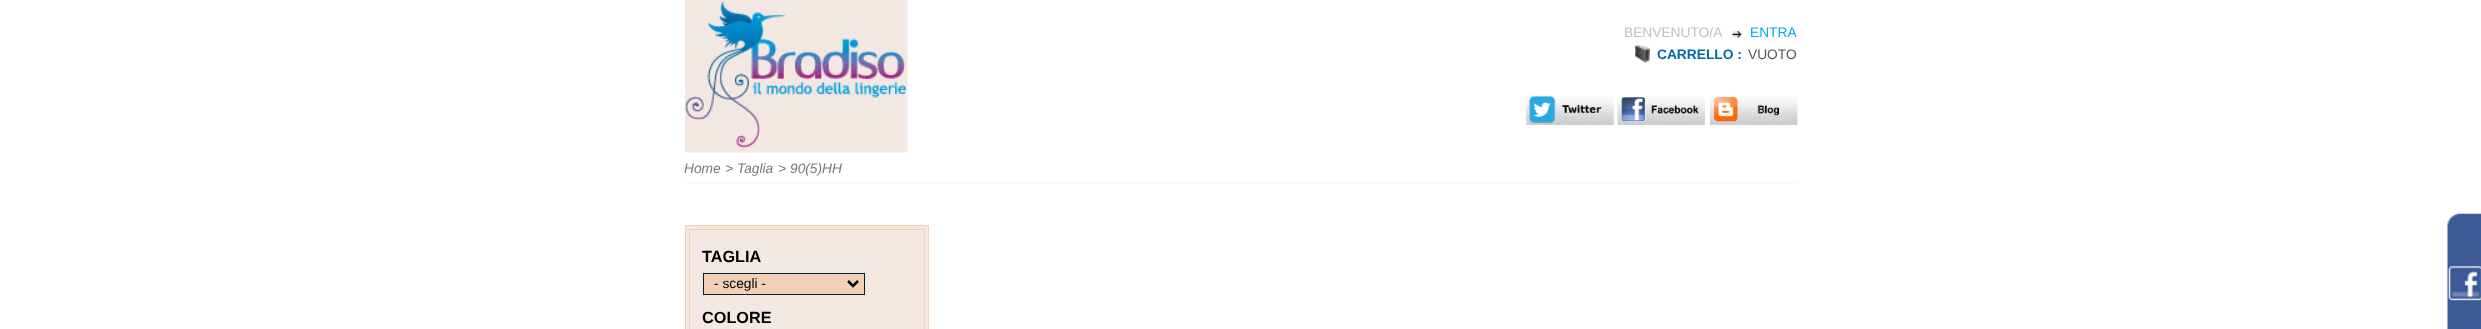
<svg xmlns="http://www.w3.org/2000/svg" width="2481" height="329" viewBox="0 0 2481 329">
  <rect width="100%" height="100%" fill="#ffffff"/>
  <image x="685" y="0" width="223" height="153" href="img1.png"/>
  <text x="1624" y="37" font-family="Liberation Sans" font-size="13.75" fill="#c0c0c0">BENVENUTO/A</text>
  <image x="1732" y="31" width="10" height="7" href="img2.png"/>
  <text x="1750" y="37" font-family="Liberation Sans" font-size="13.75" fill="#00aced">ENTRA</text>
  <image x="1635" y="45" width="15" height="18" href="img3.png"/>
  <text x="1657" y="59" font-family="Liberation Sans" font-size="13.75" font-weight="bold" fill="#0069a4">CARRELLO :</text>
  <text x="1748" y="59" font-family="Liberation Sans" font-size="13.75" fill="#555555">VUOTO</text>
  <image x="1526" y="96" width="88" height="29" href="img4.png"/>
  <image x="1617" y="97" width="88" height="28" href="img5.png"/>
  <image x="1710" y="96" width="88" height="29" href="img6.png"/>
  <path d="M685 183H1797.5" fill="none" stroke="#ebebeb" stroke-width="1.2" stroke-dasharray="1.25 1.25"/>
  <text x="684" y="173" font-family="Liberation Sans" font-size="13.75" font-style="italic" fill="#777777">Home</text>
  <text x="725" y="173" font-family="Liberation Sans" font-size="13.75" font-style="italic" fill="#777777">&gt;</text>
  <text x="737" y="173" font-family="Liberation Sans" font-size="13.75" font-style="italic" fill="#777777">Taglia</text>
  <text x="778" y="173" font-family="Liberation Sans" font-size="13.75" font-style="italic" fill="#777777">&gt;</text>
  <text x="790" y="173" font-family="Liberation Sans" font-size="13.75" font-style="italic" fill="#777777">90(5)HH</text>
  <rect x="685.5" y="225.5" width="243" height="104" fill="#f3e8e2" stroke="#f3d1b6"/>
  <rect x="689.5" y="229.5" width="235" height="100" fill="none" stroke="#f3d1b6"/>
  <text x="702" y="262" font-family="Liberation Sans" font-size="16.25" font-weight="bold" fill="#000000">TAGLIA</text>
  <rect x="703.5" y="273.5" width="161" height="21" fill="#f3d1b6" stroke="#001f2f"/>
  <path d="M848 281L853 286L858 281" fill="none" stroke="#000000" stroke-width="2.5"/>
  <text x="714" y="288" font-family="Liberation Sans" font-size="13.75" fill="#000000">- scegli -</text>
  <text x="702" y="323" font-family="Liberation Sans" font-size="16.25" font-weight="bold" fill="#000000">COLORE</text>
  <image x="2447" y="213" width="34" height="116" href="img7.png"/>
</svg>
